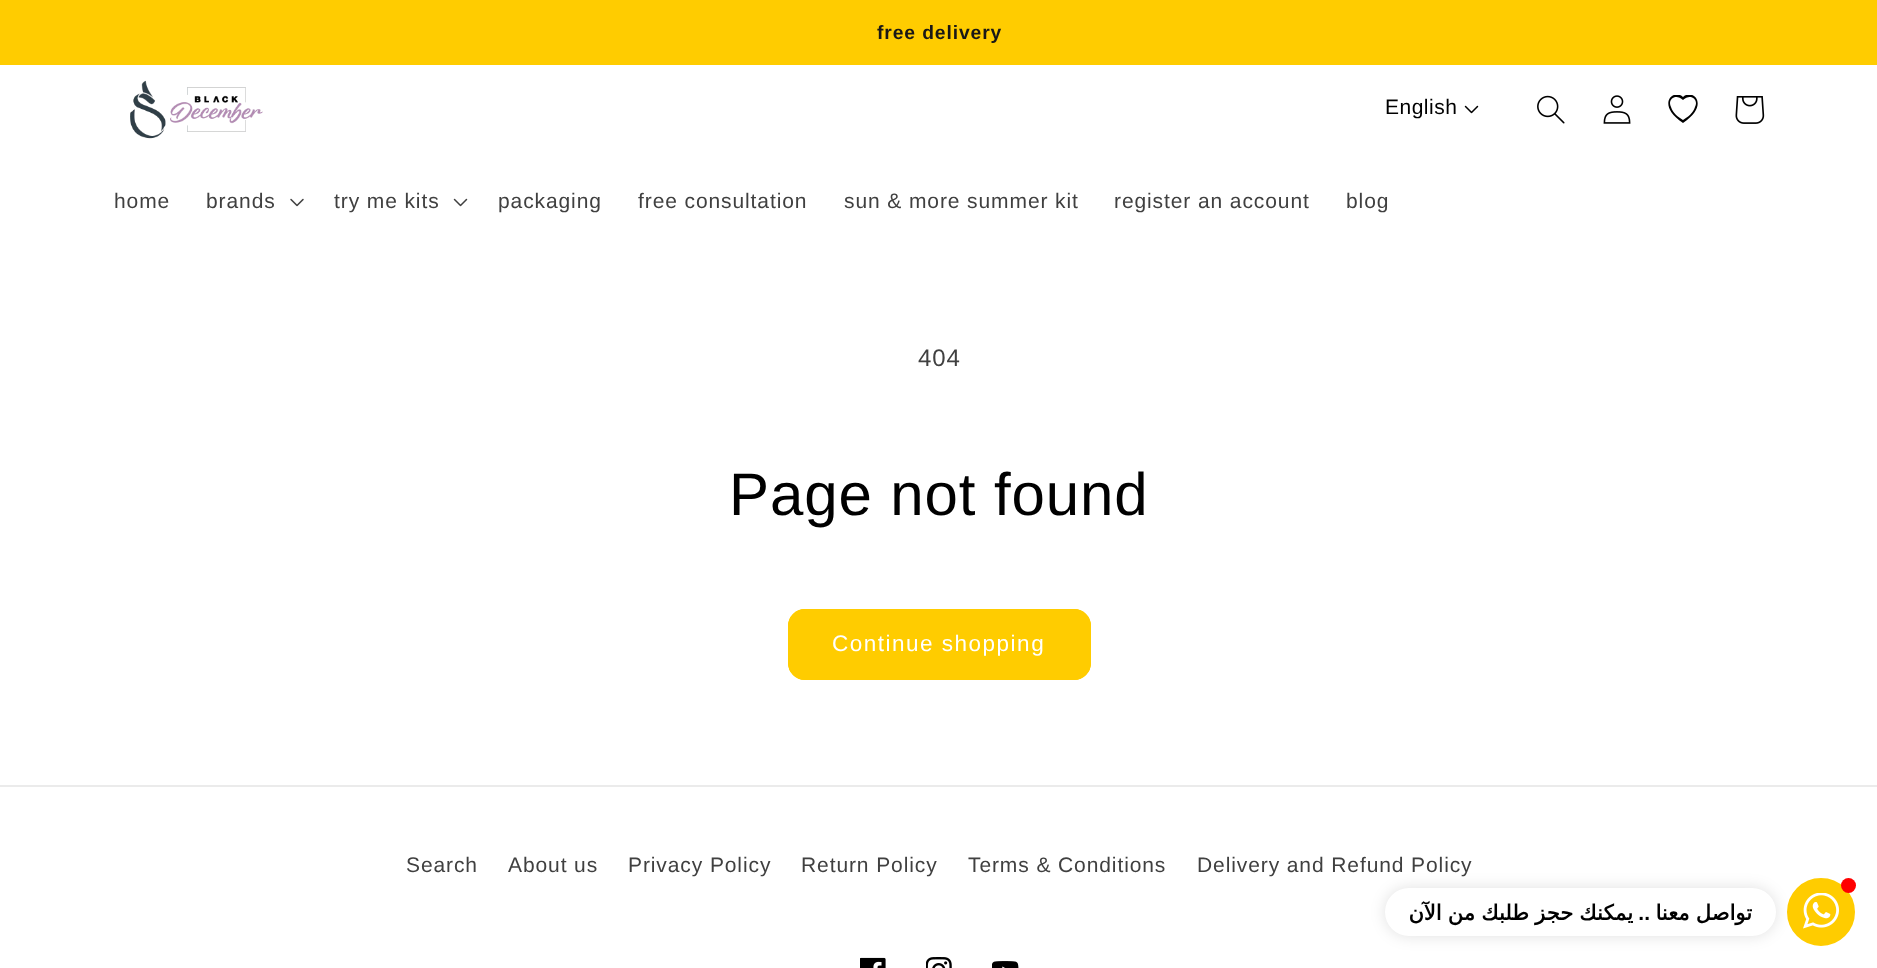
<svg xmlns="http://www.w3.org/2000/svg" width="1877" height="968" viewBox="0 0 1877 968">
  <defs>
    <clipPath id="clip1"><rect x="1668" y="95" width="30" height="30"/></clipPath>
    <filter id="blur1" x="-50%" y="-200%" width="200%" height="500%"><feGaussianBlur stdDeviation="7.5"/></filter>
  </defs>
  <rect width="100%" height="100%" fill="#ffffff"/>
  <rect x="0" y="0" width="1877" height="65" fill="#ffcc00"/>
  <text x="877" y="39" font-family="Liberation Sans" font-size="19.25" font-weight="bold" letter-spacing="0.9" fill="#191817">free delivery</text>
  <image x="130" y="80" width="133" height="59" href="img1.png"/>
  <text x="1385" y="114" font-family="Liberation Sans" font-size="21" letter-spacing="0.5" fill="#000000">English</text>
  <image x="1464" y="105" width="15" height="9" href="img2.png"/>
  <image x="1537" y="95" width="28" height="29" href="img3.png"/>
  <image x="1603" y="95" width="28" height="29" href="img4.png"/>
  <g clip-path="url(#clip1)">
    <path d="M1683 100C1676 93 1667 99 1671 107C1673 113 1678 117 1683 120C1688 117 1693 113 1695 107C1699 99 1690 93 1683 100ZM1683 123C1655 104 1674 88 1683 97C1692 88 1711 104 1683 123Z" fill="#000000"/>
  </g>
  <image x="1735" y="96" width="30" height="28" href="img5.png"/>
  <text x="114" y="208" font-family="Liberation Sans" font-size="21" letter-spacing="0.9" fill="#404040">home</text>
  <text x="206" y="208" font-family="Liberation Sans" font-size="21" letter-spacing="0.9" fill="#404040">brands</text>
  <image x="290" y="198" width="14" height="9" href="img6.png"/>
  <text x="334" y="208" font-family="Liberation Sans" font-size="21" letter-spacing="0.9" fill="#404040">try me kits</text>
  <image x="453" y="198" width="15" height="9" href="img7.png"/>
  <text x="498" y="208" font-family="Liberation Sans" font-size="21" letter-spacing="0.9" fill="#404040">packaging</text>
  <text x="638" y="208" font-family="Liberation Sans" font-size="21" letter-spacing="0.9" fill="#404040">free consultation</text>
  <text x="844" y="208" font-family="Liberation Sans" font-size="21" letter-spacing="0.9" fill="#404040">sun &amp; more summer kit</text>
  <text x="1114" y="208" font-family="Liberation Sans" font-size="21" letter-spacing="0.9" fill="#404040">register an account</text>
  <text x="1346" y="208" font-family="Liberation Sans" font-size="21" letter-spacing="0.9" fill="#404040">blog</text>
  <text x="918" y="366" font-family="Liberation Sans" font-size="24" letter-spacing="0.9" fill="#404040">404</text>
  <text x="729" y="515" font-family="Liberation Sans" font-size="60" letter-spacing="0.9" fill="#000000">Page not found</text>
  <rect x="788" y="609" width="303" height="71" rx="17" fill="#ffcc00"/>
  <rect x="789" y="610" width="301" height="69" rx="16" fill="none" stroke="#ffcc00" stroke-width="2"/>
  <text x="832" y="651" font-family="Liberation Sans" font-size="22.5" letter-spacing="1.5" fill="#ffffff">Continue shopping</text>
  <rect x="0" y="785" width="1877" height="2" fill="#ebebeb"/>
  <text x="406" y="872" font-family="Liberation Sans" font-size="21" letter-spacing="0.9" fill="#404040">Search</text>
  <text x="508" y="872" font-family="Liberation Sans" font-size="21" letter-spacing="0.9" fill="#404040">About us</text>
  <text x="628" y="872" font-family="Liberation Sans" font-size="21" letter-spacing="0.9" fill="#404040">Privacy Policy</text>
  <text x="801" y="872" font-family="Liberation Sans" font-size="21" letter-spacing="0.9" fill="#404040">Return Policy</text>
  <text x="968" y="872" font-family="Liberation Sans" font-size="21" letter-spacing="0.9" fill="#404040">Terms &amp; Conditions</text>
  <text x="1197" y="872" font-family="Liberation Sans" font-size="21" letter-spacing="0.9" fill="#404040">Delivery and Refund Policy</text>
  <image x="860" y="957" width="26" height="11" href="img8.png"/>
  <image x="926" y="957" width="26" height="11" href="img9.png"/>
  <image x="992" y="961" width="27" height="7" href="img10.png"/>
  <circle cx="1821" cy="912" r="35" fill="#ffcc00" stroke="#ffffff" stroke-width="2"/>
  <circle cx="1848.5" cy="885.5" r="7.5" fill="#ff0000"/>
  <rect x="1385" y="888" width="391" height="48" rx="24" fill="#000000" fill-opacity="0.12" filter="url(#blur1)"/>
  <rect x="1385" y="888" width="391" height="48" rx="24" fill="#ffffff"/>
  <text x="1633" y="920" word-spacing="-0.5" font-family="DejaVu Sans" font-size="21" font-weight="bold" direction="rtl" fill="#000000">يمكنك حجز طلبك من الآن</text>
  <text x="1650" y="920" font-family="Liberation Sans" font-size="21" font-weight="bold" direction="rtl" fill="#000000">..</text>
  <text x="1752" y="920" word-spacing="-0.5" font-family="DejaVu Sans" font-size="21" font-weight="bold" direction="rtl" fill="#000000">تواصل معنا</text>
  <image x="1803" y="893" width="36" height="36" href="img11.png"/>
</svg>
